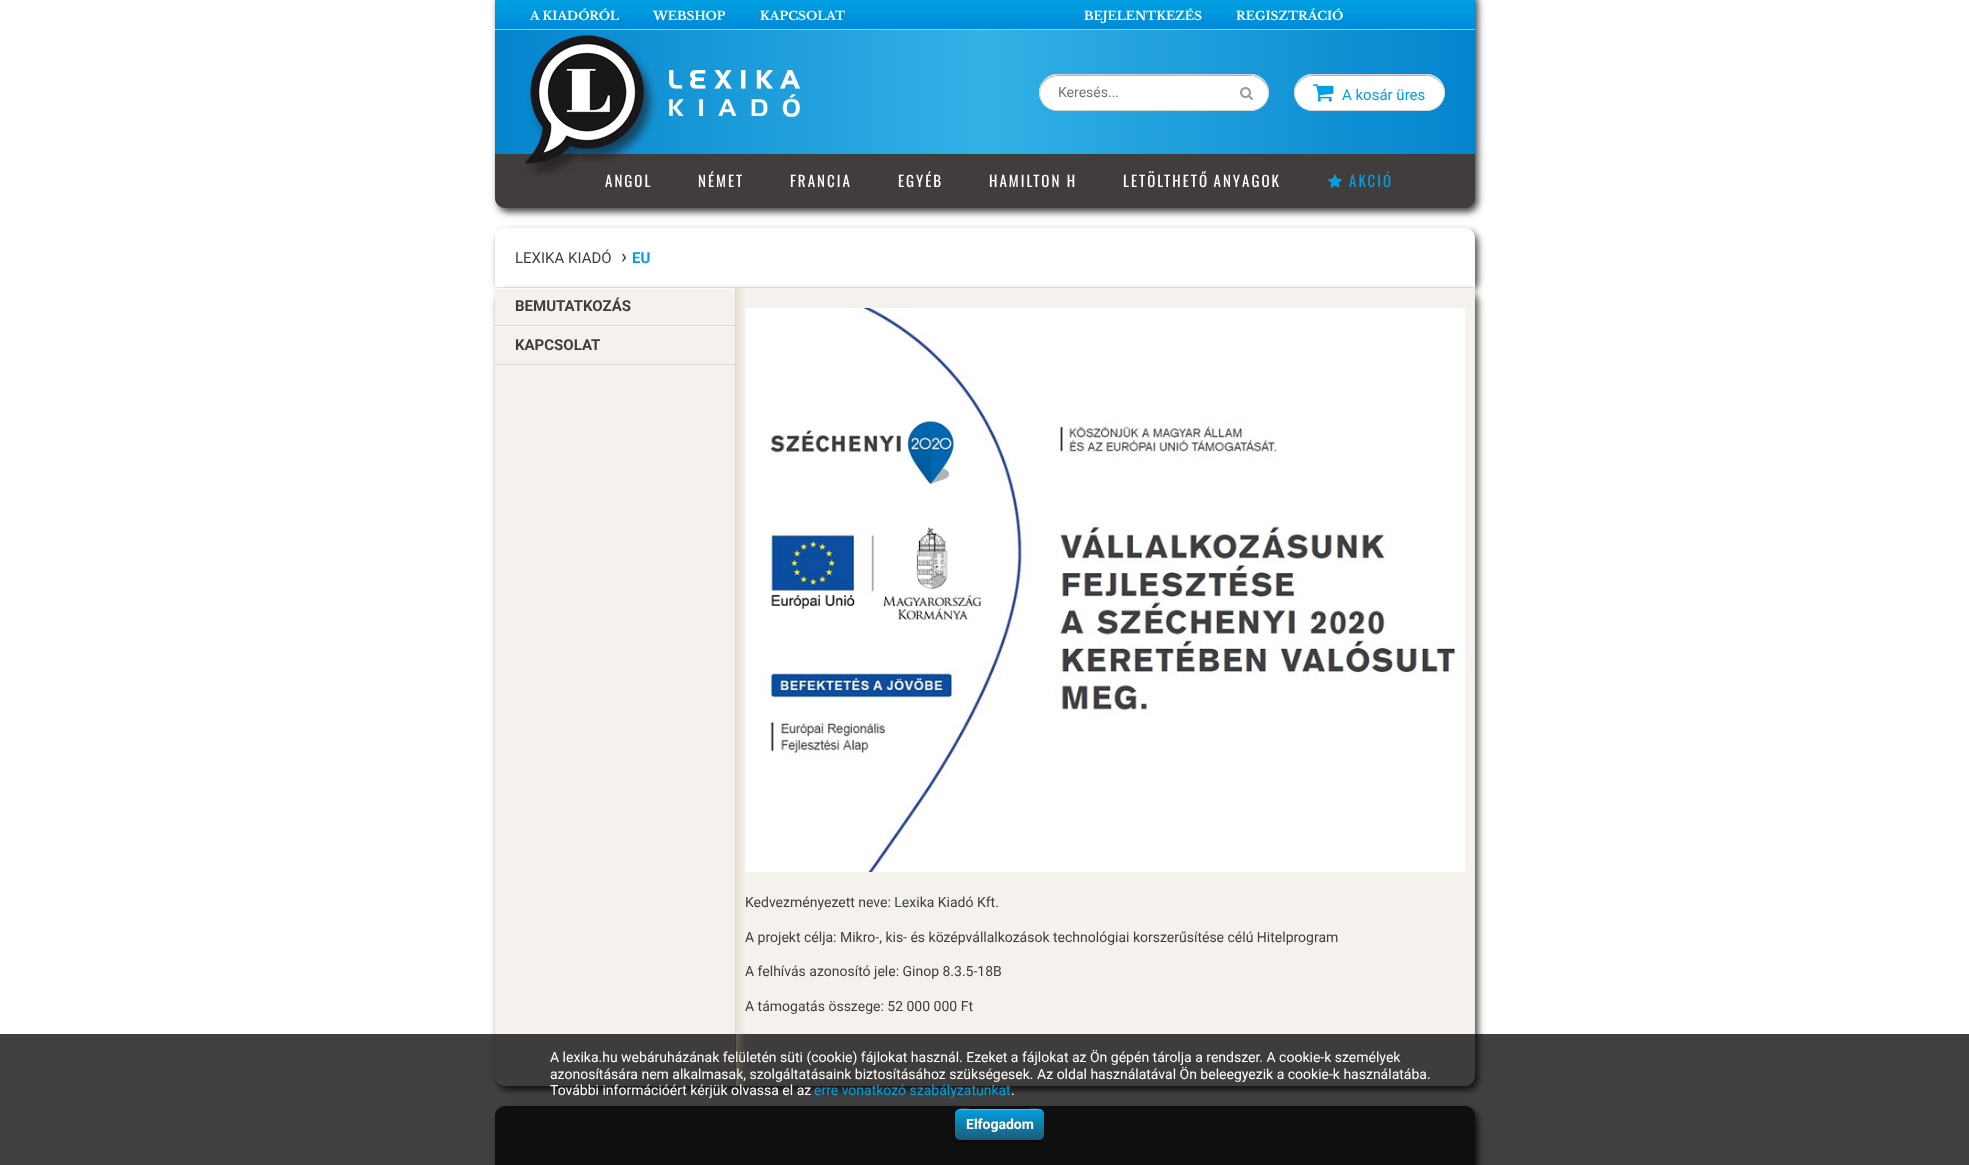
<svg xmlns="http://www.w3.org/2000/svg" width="1969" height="1165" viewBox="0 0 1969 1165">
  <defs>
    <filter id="blur1" x="-50%" y="-200%" width="200%" height="500%"><feGaussianBlur stdDeviation="3.5"/></filter>
    <linearGradient id="g1" gradientUnits="userSpaceOnUse" x1="495" y1="92" x2="1475" y2="92"><stop offset="0" stop-color="#0484cd"/><stop offset="0.5" stop-color="#32b1e6"/><stop offset="1" stop-color="#0484cd"/></linearGradient>
    <linearGradient id="g2" gradientUnits="userSpaceOnUse" x1="1000" y1="1140" x2="1000" y2="1109"><stop offset="0" stop-color="#1d5b7a"/><stop offset="1" stop-color="#01a0e1"/></linearGradient>
  </defs>
  <rect width="100%" height="100%" fill="#ffffff"/>
  <rect x="498" y="-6" width="980" height="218" rx="10" fill="#444444" filter="url(#blur1)"/>
  <image x="495" y="0" width="980" height="30" href="img1.png"/>
  <text x="530" y="20" font-family="Libre Baskerville" font-size="12" font-weight="bold" fill="#ffffff">A KIADÓRÓL</text>
  <text x="653" y="20" font-family="Libre Baskerville" font-size="12" font-weight="bold" fill="#ffffff">WEBSHOP</text>
  <text x="760" y="20" font-family="Libre Baskerville" font-size="12" font-weight="bold" fill="#ffffff">KAPCSOLAT</text>
  <text x="1084" y="20" font-family="Libre Baskerville" font-size="12" font-weight="bold" fill="#ffffff">BEJELENTKEZÉS</text>
  <text x="1236" y="20" font-family="Libre Baskerville" font-size="12" font-weight="bold" fill="#ffffff">REGISZTRÁCIÓ</text>
  <rect x="495" y="30" width="980" height="124" fill="url(#g1)"/>
  <path d="M495 154H1475V198C1475 203.5 1470.5 208 1465 208H505C499.5 208 495 203.5 495 198Z" fill="#413d3c"/>
  <image x="525" y="35" width="275" height="141" href="img2.png"/>
  <rect x="1039" y="74" width="230" height="37" rx="18.5" fill="#ffffff"/>
  <path d="M1058 76H1250C1260 76 1268 84 1268 93C1269 68 1231 75 1218 75H1090C1077 75 1039 68 1040 93C1040 84 1048 76 1058 76Z" fill="#b3b3b3"/>
  <rect x="1039.5" y="74.5" width="229" height="36" rx="18" fill="none" stroke="#d5d4d2"/>
  <text x="1058" y="97" font-family="Roboto" font-size="14" fill="#757575">Keresés...</text>
  <image x="1240" y="87" width="13" height="13" href="img3.png"/>
  <rect x="1294" y="74" width="151" height="37" rx="18.5" fill="#ffffff"/>
  <path d="M1312 76H1426C1436 76 1444 84 1444 93V92C1444 83 1436 75 1426 75H1312C1303 75 1295 83 1295 92V93C1295 84 1303 76 1312 76Z" fill="#b3b3b3"/>
  <rect x="1294.5" y="74.5" width="150" height="36" rx="18" fill="none" stroke="#d5d4d2"/>
  <image x="1313" y="84" width="21" height="18" href="img4.png"/>
  <text x="1342" y="100" font-family="Roboto" font-size="15" fill="#01a0e1">A kosár üres</text>
  <text x="605" y="187" font-family="Oswald" font-size="15" letter-spacing="2" fill="#ffffff">ANGOL</text>
  <text x="698" y="187" font-family="Oswald" font-size="15" letter-spacing="2" fill="#ffffff">NÉMET</text>
  <text x="790" y="187" font-family="Oswald" font-size="15" letter-spacing="2" fill="#ffffff">FRANCIA</text>
  <text x="898" y="187" font-family="Oswald" font-size="15" letter-spacing="2" fill="#ffffff">EGYÉB</text>
  <text x="989" y="187" font-family="Oswald" font-size="15" letter-spacing="2" fill="#ffffff">HAMILTON H</text>
  <text x="1123" y="187" word-spacing="-1" font-family="Oswald" font-size="15" letter-spacing="2" fill="#ffffff">LETÖLTHETŐ ANYAGOK</text>
  <image x="1328" y="174" width="14" height="14" href="img5.png"/>
  <text x="1349" y="187" font-family="Oswald" font-size="15" letter-spacing="2" fill="#01a0e1">AKCIÓ</text>
  <rect x="498" y="232" width="980" height="60" rx="10" fill="#444444" filter="url(#blur1)"/>
  <path d="M505 228H1465C1470.5 228 1475 232.5 1475 238V288H495V238C495 232.5 499.5 228 505 228Z" fill="#ffffff"/>
  <rect x="495" y="287" width="980" height="1" fill="#e6e6e6"/>
  <text x="515" y="263" font-family="Roboto" font-size="15" fill="#3e3e3e">LEXIKA KIADÓ</text>
  <text x="621" y="263" font-family="Roboto" font-size="20" fill="#3e3e3e">›</text>
  <text x="632" y="263" font-family="Roboto" font-size="15" font-weight="bold" fill="#01a0e1">EU</text>
  <rect x="498" y="292" width="980" height="798" rx="10" fill="#444444" filter="url(#blur1)"/>
  <path d="M495 288H1475V1076C1475 1081.5 1470.5 1086 1465 1086H505C499.5 1086 495 1081.5 495 1076Z" fill="#f5f2ed"/>
  <rect x="495" y="364" width="240" height="1" fill="#dedad5"/>
  <rect x="495" y="288" width="240" height="1" fill="#fbf9f6"/>
  <text x="515" y="311" font-family="Roboto" font-size="15" font-weight="bold" fill="#3e3e3e">BEMUTATKOZÁS</text>
  <rect x="495" y="325" width="240" height="1" fill="#dddad5"/>
  <rect x="495" y="326" width="240" height="1" fill="#fbf9f6"/>
  <text x="515" y="350" font-family="Roboto" font-size="15" font-weight="bold" fill="#3e3e3e">KAPCSOLAT</text>
  <text x="745" y="942" font-family="Roboto" font-size="14" fill="#3e3e3e">A projekt célja: Mikro-, kis- és középvállalkozások technológiai korszerűsítése célú Hitelprogram</text>
  <text x="745" y="976" font-family="Roboto" font-size="14" fill="#3e3e3e">A felhívás azonosító jele: Ginop 8.3.5-18B</text>
  <text x="745" y="1011" font-family="Roboto" font-size="14" fill="#3e3e3e">A támogatás összege: 52 000 000 Ft</text>
  <rect x="498" y="1110" width="980" height="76" rx="10" fill="#444444" filter="url(#blur1)"/>
  <path d="M505 1106H1465C1470.5 1106 1475 1110.5 1475 1116V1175H495V1116C495 1110.5 499.5 1106 505 1106Z" fill="#413d3c"/>
  <rect x="0" y="1034" width="1969" height="131" fill="#000000" fill-opacity="0.75"/>
  <text x="550" y="1062" font-family="Roboto" font-size="14" fill="#ffffff">A lexika.hu webáruházának felületén süti (cookie) fájlokat használ. Ezeket a fájlokat az Ön gépén tárolja a rendszer. A cookie-k személyek</text>
  <text x="550" y="1079" font-family="Roboto" font-size="14" fill="#ffffff">azonosítására nem alkalmasak, szolgáltatásaink biztosításához szükségesek. Az oldal használatával Ön beleegyezik a cookie-k használatába.</text>
  <text x="550" y="1095" font-family="Roboto" font-size="14" fill="#ffffff">További információért kérjük olvassa el az</text>
  <image x="736" y="288" width="9" height="798" href="img6.png"/>
  <rect x="735" y="288" width="1" height="798" fill="#000000" fill-opacity="0.1"/>
  <image x="745" y="308" width="720" height="564" href="img7.png"/>
  <text x="745" y="907" font-family="Roboto" font-size="14" fill="#3e3e3e">Kedvezményezett neve: Lexika Kiadó Kft.</text>
  <text x="814" y="1095" font-family="Roboto" font-size="14" fill="#01a0e1">erre vonatkozó szabályzatunkat</text>
  <text x="1011" y="1095" font-family="Roboto" font-size="14" fill="#ffffff">.</text>
  <path d="M955 1135C955 1144 968 1141 973 1141H1026C1031 1141 1044 1144 1044 1135C1044 1138 1042 1140 1039 1140H960C957 1140 955 1138 955 1135Z" fill="#050505"/>
  <rect x="955" y="1109" width="89" height="31" rx="5" fill="url(#g2)"/>
  <path d="M960 1110H1039C1042 1110 1044 1112 1044 1115C1044 1106 1031 1109 1026 1109H973C968 1109 955 1106 955 1115C955 1112 957 1110 960 1110Z" fill="#ffffff" fill-opacity="0.3"/>
  <text x="966" y="1129" font-family="Roboto" font-size="14" font-weight="bold" fill="#ffffff">Elfogadom</text>
</svg>
